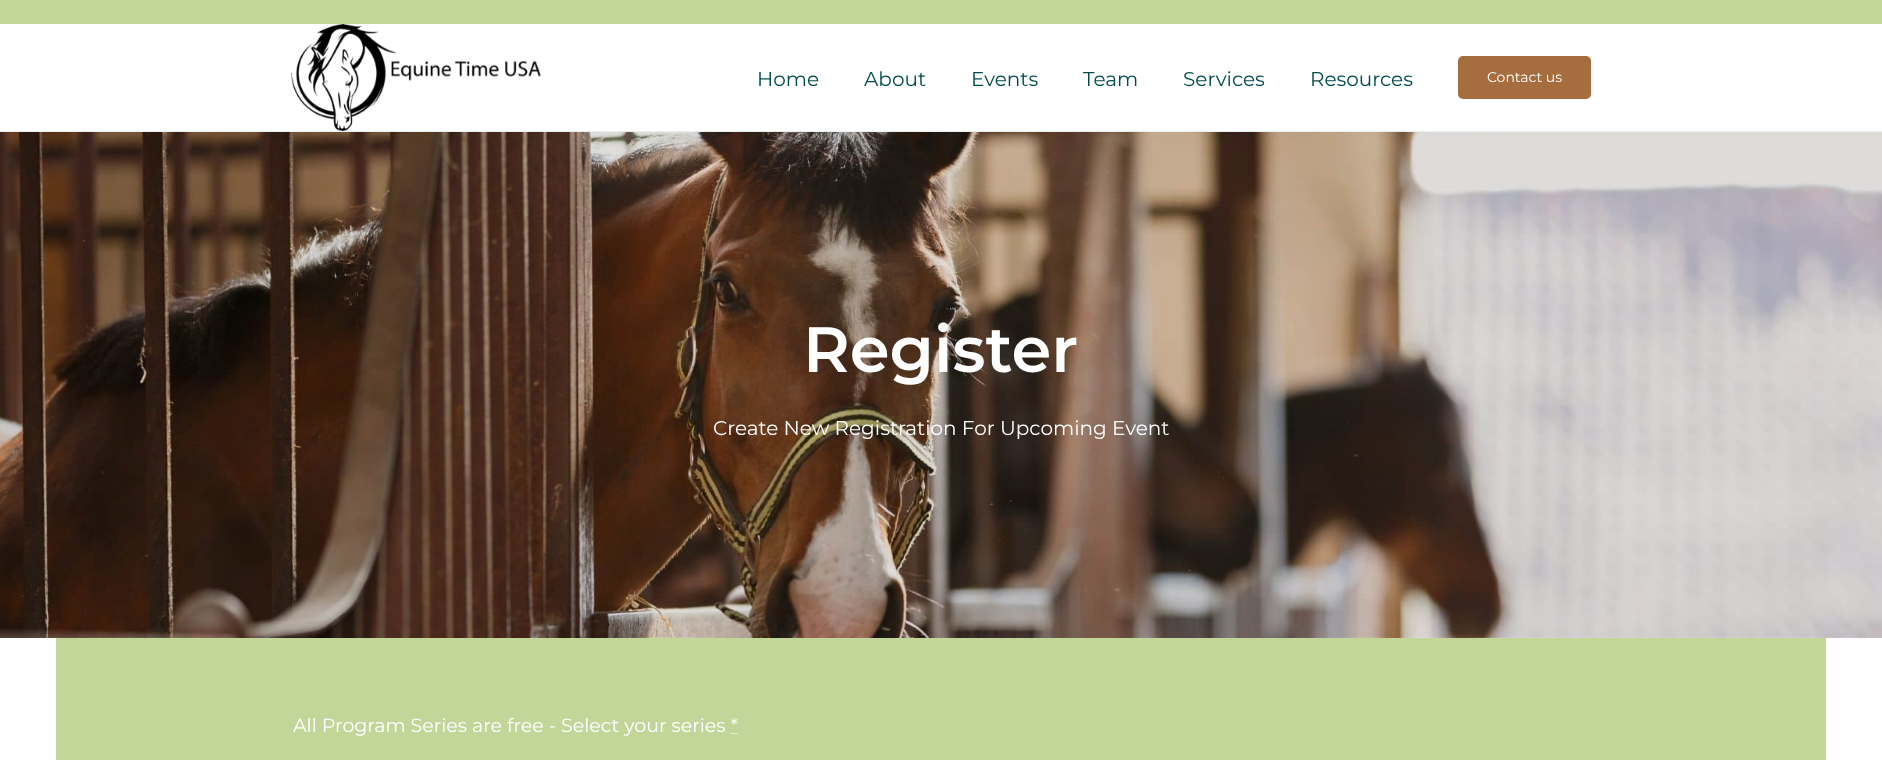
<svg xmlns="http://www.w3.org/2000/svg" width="1882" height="760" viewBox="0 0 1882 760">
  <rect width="100%" height="100%" fill="#ffffff"/>
  <rect x="0" y="0" width="1882" height="24" fill="#c2d699"/>
  <rect x="0" y="131" width="1882" height="1" fill="#e8efef"/>
  <image x="291" y="24" width="250" height="107" href="img1.png"/>
  <text x="757" y="86" font-family="Montserrat" font-size="20" fill="#004c4c">Home</text>
  <text x="864" y="86" font-family="Montserrat" font-size="20" fill="#004c4c">About</text>
  <text x="971" y="86" font-family="Montserrat" font-size="20" fill="#004c4c">Events</text>
  <text x="1083" y="86" font-family="Montserrat" font-size="20" fill="#004c4c">Team</text>
  <text x="1183" y="86" font-family="Montserrat" font-size="20" fill="#004c4c">Services</text>
  <text x="1310" y="86" font-family="Montserrat" font-size="20" fill="#004c4c">Resources</text>
  <rect x="1458" y="56" width="133" height="43" rx="5" fill="#a66d3f"/>
  <text x="1487" y="82" font-family="Montserrat" font-size="14" fill="#ffffff">Contact us</text>
  <image x="0" y="132" width="1882" height="506" href="img2.png"/>
  <text x="803" y="372" font-family="Montserrat" font-size="64" font-weight="600" fill="#ffffff">Register</text>
  <text x="713" y="435" font-family="Montserrat" font-size="20" fill="#ffffff">Create New Registration For Upcoming Event</text>
  <rect x="56" y="638" width="1770" height="122" fill="#c2d699"/>
  <text x="293" y="732" font-family="Montserrat" font-size="19" fill="#ffffff">All Program Series are free - Select your series *</text>
  <path d="M730.5 733.5H738" fill="none" stroke="#ffffff" stroke-dasharray="1 1"/>
</svg>
